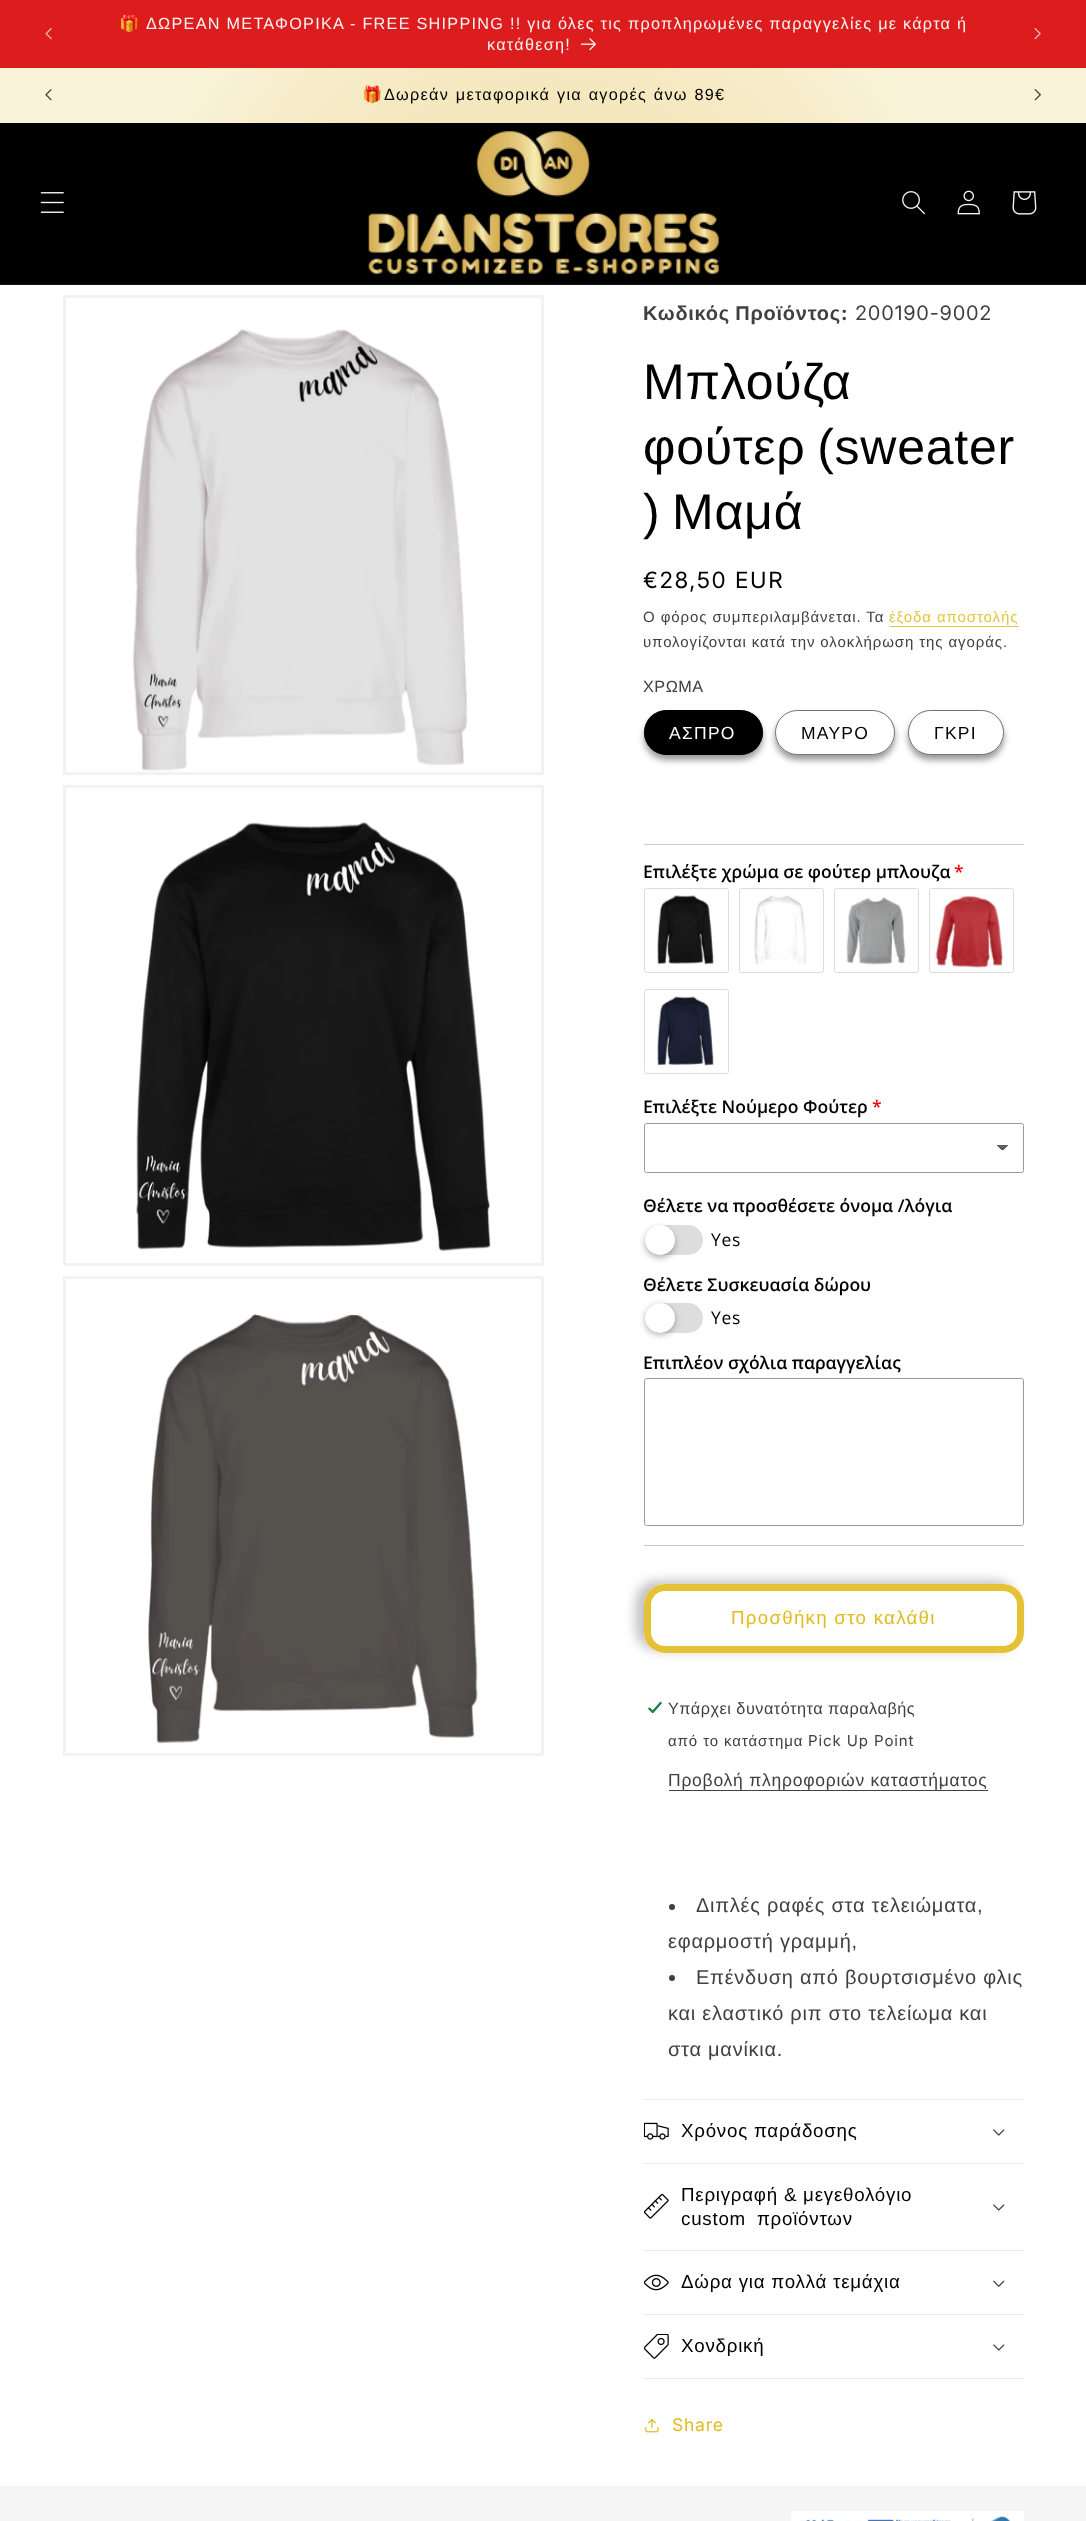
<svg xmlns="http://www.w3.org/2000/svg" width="1086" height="2521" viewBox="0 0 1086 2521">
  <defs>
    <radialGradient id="g1" gradientUnits="userSpaceOnUse" cx="0" cy="0" r="1" gradientTransform="matrix(768 0 0 1783 543 1261)"><stop offset="0.08" stop-color="#e6be5b"/><stop offset="0.81" stop-color="#f9f3d9"/></radialGradient>
    <filter id="blur1" x="-50%" y="-200%" width="200%" height="500%"><feGaussianBlur stdDeviation="3"/></filter>
    <linearGradient id="g2" gradientUnits="userSpaceOnUse" x1="1003" y1="1144" x2="1009" y2="1151"><stop offset="0.5" stop-color="#5c5f62"/><stop offset="0.5" stop-color="#ffffff"/></linearGradient>
    <linearGradient id="g3" gradientUnits="userSpaceOnUse" x1="996" y1="1151" x2="1003" y2="1144"><stop offset="0.5" stop-color="#ffffff"/><stop offset="0.5" stop-color="#5c5f62"/></linearGradient>
    <filter id="blur2" x="-50%" y="-200%" width="200%" height="500%"><feGaussianBlur stdDeviation="6"/></filter>
  </defs>
  <rect width="100%" height="100%" fill="#ffffff"/>
  <rect x="0" y="0" width="1086" height="68" fill="#dd1d1d"/>
  <image x="45" y="28" width="7" height="12" href="img1.png"/>
  <text x="119" y="29" font-family="Noto Color Emoji" font-size="16.25" letter-spacing="1.25" fill="#f5f5f5">🎁</text>
  <text x="146" y="29" font-family="Liberation Sans" font-size="16.25" letter-spacing="1.25" fill="#f5f5f5">ΔΩΡΕΑΝ ΜΕΤΑΦΟΡΙΚΑ - FREE SHIPPING !! για όλες τις προπληρωμένες παραγγελίες με κάρτα ή</text>
  <text x="487" y="50" font-family="Liberation Sans" font-size="16.25" letter-spacing="1.25" fill="#f5f5f5">κατάθεση!</text>
  <image x="581" y="38" width="15" height="13" href="img2.png"/>
  <image x="1034" y="28" width="7" height="12" href="img3.png"/>
  <rect x="0" y="68" width="1086" height="55" fill="url(#g1)"/>
  <image x="45" y="89" width="7" height="12" href="img4.png"/>
  <text x="362" y="100" font-family="Noto Color Emoji" font-size="16.25" letter-spacing="1.25" fill="#000000">🎁</text>
  <text x="384" y="100" word-spacing="1" font-family="Liberation Sans" font-size="16.25" letter-spacing="1.25" fill="#000000">Δωρεάν μεταφορικά για αγορές άνω 89€</text>
  <image x="1034" y="89" width="7" height="12" href="img5.png"/>
  <rect x="0" y="123" width="1086" height="161" fill="#000000"/>
  <rect x="0" y="284" width="1086" height="1" fill="#141414"/>
  <image x="40" y="192" width="24" height="21" href="img6.png"/>
  <image x="368" y="131" width="351" height="143" href="img7.png"/>
  <image x="902" y="191" width="23" height="24" href="img8.png"/>
  <image x="957" y="190" width="23" height="25" href="img9.png"/>
  <image x="1012" y="191" width="25" height="24" href="img10.png"/>
  <rect x="64.5" y="296.5" width="478" height="477" fill="none" stroke="#f2f2f2" stroke-width="3"/>
  <image x="132" y="329" width="336" height="442" href="img11.png"/>
  <rect x="64.5" y="786.5" width="478" height="478" fill="none" stroke="#f2f2f2" stroke-width="3"/>
  <image x="136" y="822" width="355" height="430" href="img12.png"/>
  <rect x="64.5" y="1277.5" width="478" height="477" fill="none" stroke="#f2f2f2" stroke-width="3"/>
  <image x="148" y="1313" width="330" height="431" href="img13.png"/>
  <text x="643" y="320" word-spacing="-1" font-family="Liberation Sans" font-size="20" font-weight="bold" letter-spacing="0.75" fill="#404040">Κωδικός Προϊόντος</text>
  <text x="841" y="320" font-family="Inter" font-size="20" font-weight="bold" letter-spacing="0.75" fill="#404040">:</text>
  <text x="855" y="320" font-family="Inter" font-size="20" letter-spacing="0.75" fill="#404040">200190-9002</text>
  <text x="643" y="399" font-family="Liberation Sans" font-size="50" letter-spacing="0.75" fill="#000000">Μπλούζα</text>
  <text x="643" y="464" word-spacing="-3" font-family="Liberation Sans" font-size="50" letter-spacing="0.75" fill="#000000">φούτερ (sweater</text>
  <text x="643" y="529" word-spacing="-3" font-family="Liberation Sans" font-size="50" letter-spacing="0.75" fill="#000000">) Μαμά</text>
  <text x="643" y="588" font-family="'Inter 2'" font-size="22.5" letter-spacing="1.6" fill="#000000">€28,50 EUR</text>
  <text x="643" y="622" font-family="Liberation Sans" font-size="15" letter-spacing="0.9" fill="#404040">Ο φόρος συμπεριλαμβάνεται. Τα</text>
  <text x="889" y="622" font-family="Liberation Sans" font-size="15" letter-spacing="0.9" fill="#e6c53f">έξοδα αποστολής</text>
  <rect x="890" y="626" width="129" height="1" fill="#e6c53f"/>
  <text x="643" y="647" font-family="Liberation Sans" font-size="15" letter-spacing="0.9" fill="#404040">υπολογίζονται κατά την ολοκλήρωση της αγοράς.</text>
  <text x="643" y="692" font-family="Liberation Sans" font-size="16.25" letter-spacing="0.5" fill="#404040">ΧΡΩΜΑ</text>
  <rect x="644" y="715" width="119" height="45" rx="22.5" fill="#000000" fill-opacity="0.4" filter="url(#blur1)"/>
  <rect x="644" y="710" width="119" height="45" rx="22.5" fill="#000000"/>
  <rect x="644.5" y="710.5" width="118" height="44" rx="22" fill="none" stroke="#000000" stroke-opacity="0.55"/>
  <text x="669" y="739" font-family="Liberation Sans" font-size="17.5" letter-spacing="1.25" fill="#ffffff">ΑΣΠΡΟ</text>
  <rect x="775" y="715" width="120" height="45" rx="22.5" fill="#000000" fill-opacity="0.4" filter="url(#blur1)"/>
  <rect x="775" y="710" width="120" height="45" rx="22.5" fill="#ffffff"/>
  <rect x="775.5" y="710.5" width="119" height="44" rx="22" fill="none" stroke="#000000" stroke-opacity="0.55"/>
  <text x="801" y="739" font-family="Liberation Sans" font-size="17.5" letter-spacing="1.25" fill="#000000">ΜΑΥΡΟ</text>
  <rect x="908" y="715" width="96" height="45" rx="22.5" fill="#000000" fill-opacity="0.4" filter="url(#blur1)"/>
  <rect x="908" y="710" width="96" height="45" rx="22.5" fill="#ffffff"/>
  <rect x="908.5" y="710.5" width="95" height="44" rx="22" fill="none" stroke="#000000" stroke-opacity="0.55"/>
  <text x="934" y="739" font-family="Liberation Sans" font-size="17.5" letter-spacing="1.25" fill="#000000">ΓΚΡΙ</text>
  <rect x="644" y="844" width="380" height="1" fill="#cccccc"/>
  <text x="643" y="878" font-family="Open Sans" font-size="17.5" font-weight="600" fill="#000000">Επιλέξτε χρώμα σε φούτερ μπλουζα</text>
  <text x="954" y="878" font-family="Open Sans" font-size="17.5" font-weight="600" fill="#ff0000">*</text>
  <rect x="644.5" y="888.5" width="84" height="84" rx="2" fill="none" stroke="#dddddd"/>
  <image x="657" y="895" width="57" height="70" href="img14.png"/>
  <rect x="739.5" y="888.5" width="84" height="84" rx="2" fill="none" stroke="#dddddd"/>
  <image x="754" y="895" width="53" height="70" href="img15.png"/>
  <rect x="834.5" y="888.5" width="84" height="84" rx="2" fill="none" stroke="#dddddd"/>
  <image x="846" y="897" width="61" height="68" href="img16.png"/>
  <rect x="929.5" y="888.5" width="84" height="84" rx="2" fill="none" stroke="#dddddd"/>
  <image x="934" y="893" width="71" height="75" href="img17.png"/>
  <rect x="644.5" y="989.5" width="84" height="84" rx="2" fill="none" stroke="#dddddd"/>
  <image x="657" y="996" width="57" height="71" href="img18.png"/>
  <text x="643" y="1113" font-family="Open Sans" font-size="17.5" font-weight="600" fill="#000000">Επιλέξτε Νούμερο Φούτερ</text>
  <text x="872" y="1113" font-family="Open Sans" font-size="17.5" font-weight="600" fill="#ff0000">*</text>
  <rect x="644.5" y="1123.5" width="379" height="49" rx="2" fill="none" stroke="#9a9a9a"/>
  <rect x="645" y="1124" width="378" height="47" rx="2.5" fill="#ffffff"/>
  <rect x="1003" y="1145" width="6" height="5" fill="url(#g2)"/>
  <rect x="996" y="1145" width="7" height="5" fill="url(#g3)"/>
  <text x="643" y="1212" font-family="Open Sans" font-size="17.5" font-weight="600" fill="#000000">Θέλετε να προσθέσετε όνομα /λόγια</text>
  <rect x="645" y="1225" width="58" height="30" rx="15" fill="#dddddd"/>
  <rect x="645" y="1228" width="30" height="30" rx="15" fill="#000000" fill-opacity="0.3" filter="url(#blur1)"/>
  <circle cx="660" cy="1240" r="15" fill="#ffffff"/>
  <text x="711" y="1246" font-family="Open Sans" font-size="17.5" letter-spacing="0.75" fill="#000000">Yes</text>
  <text x="643" y="1291" font-family="Open Sans" font-size="17.5" font-weight="600" fill="#000000">Θέλετε Συσκευασία δώρου</text>
  <rect x="645" y="1303" width="58" height="30" rx="15" fill="#dddddd"/>
  <rect x="645" y="1305" width="30" height="30" rx="15" fill="#000000" fill-opacity="0.3" filter="url(#blur1)"/>
  <circle cx="660" cy="1318" r="15" fill="#ffffff"/>
  <text x="711" y="1324" font-family="Open Sans" font-size="17.5" letter-spacing="0.75" fill="#000000">Yes</text>
  <text x="643" y="1369" font-family="Open Sans" font-size="17.5" font-weight="600" fill="#000000">Επιπλέον σχόλια παραγγελίας</text>
  <rect x="644.5" y="1378.5" width="379" height="147" rx="2" fill="none" stroke="#9a9a9a"/>
  <rect x="645" y="1379" width="378" height="146" rx="2.5" fill="#ffffff"/>
  <rect x="644" y="1545" width="380" height="1" fill="#cccccc"/>
  <rect x="636" y="1581" width="380" height="69" rx="21" fill="#000000" fill-opacity="0.25" filter="url(#blur2)"/>
  <rect x="644" y="1584" width="380" height="69" rx="21" fill="#ffffff"/>
  <rect x="647" y="1587" width="374" height="63" rx="18" fill="none" stroke="#ffffff" stroke-width="6"/>
  <rect x="647.5" y="1587.5" width="373" height="62" rx="17.5" fill="none" stroke="#e1bb1d" stroke-opacity="0.9" stroke-width="7"/>
  <text x="731" y="1624" font-family="Liberation Sans" font-size="18.75" letter-spacing="1.25" fill="#e1bb1d">Προσθήκη στο καλάθι</text>
  <image x="647" y="1701" width="16" height="13" href="img19.png"/>
  <text x="668" y="1714" font-family="Liberation Sans" font-size="16.25" letter-spacing="0.5" fill="#404040">Υπάρχει δυνατότητα παραλαβής</text>
  <text x="668" y="1746" font-family="Liberation Sans" font-size="15" letter-spacing="0.9" fill="#404040">από το κατάστημα</text>
  <text x="808" y="1746" font-family="'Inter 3'" font-size="15" letter-spacing="0.9" fill="#404040">Pick Up Point</text>
  <text x="668" y="1786" font-family="Liberation Sans" font-size="17.5" letter-spacing="0.75" fill="#404040">Προβολή πληροφοριών καταστήματος</text>
  <rect x="669" y="1790" width="319" height="1" fill="#404040"/>
  <circle cx="672" cy="1907" r="3" fill="#404040"/>
  <text x="696" y="1912" font-family="Liberation Sans" font-size="20" letter-spacing="0.75" fill="#404040">Διπλές ραφές στα τελειώματα,</text>
  <text x="668" y="1948" font-family="Liberation Sans" font-size="20" letter-spacing="0.75" fill="#404040">εφαρμοστή γραμμή,</text>
  <circle cx="672" cy="1978" r="3" fill="#404040"/>
  <text x="696" y="1984" font-family="Liberation Sans" font-size="20" letter-spacing="0.75" fill="#404040">Επένδυση από βουρτσισμένο φλις</text>
  <text x="668" y="2020" font-family="Liberation Sans" font-size="20" letter-spacing="0.75" fill="#404040">και ελαστικό ριπ στο τελείωμα και</text>
  <text x="668" y="2056" font-family="Liberation Sans" font-size="20" letter-spacing="0.75" fill="#404040">στα μανίκια.</text>
  <rect x="644" y="2099" width="380" height="1" fill="#ebebeb"/>
  <rect x="644" y="2163" width="380" height="1" fill="#ebebeb"/>
  <image x="644" y="2122" width="25" height="18" href="img20.png"/>
  <text x="681" y="2137" font-family="Liberation Sans" font-size="18.75" letter-spacing="0.75" fill="#000000">Χρόνος παράδοσης</text>
  <image x="993" y="2129" width="12" height="7" href="img21.png"/>
  <rect x="644" y="2250" width="380" height="1" fill="#ebebeb"/>
  <image x="644" y="2194" width="25" height="25" href="img22.png"/>
  <text x="681" y="2201" font-family="Liberation Sans" font-size="18.75" letter-spacing="0.75" fill="#000000">Περιγραφή &amp; μεγεθολόγιο</text>
  <text x="681" y="2225" word-spacing="5" font-family="Liberation Sans" font-size="18.75" letter-spacing="0.75" fill="#000000">custom προϊόντων</text>
  <image x="993" y="2204" width="12" height="7" href="img21.png"/>
  <rect x="644" y="2314" width="380" height="1" fill="#ebebeb"/>
  <image x="644" y="2274" width="25" height="17" href="img23.png"/>
  <text x="681" y="2288" font-family="Liberation Sans" font-size="18.75" letter-spacing="0.75" fill="#000000">Δώρα για πολλά τεμάχια</text>
  <image x="993" y="2280" width="12" height="7" href="img24.png"/>
  <rect x="644" y="2378" width="380" height="1" fill="#ebebeb"/>
  <image x="644" y="2334" width="25" height="25" href="img25.png"/>
  <text x="681" y="2352" font-family="Liberation Sans" font-size="18.75" letter-spacing="0.75" fill="#000000">Χονδρική</text>
  <image x="993" y="2344" width="12" height="7" href="img21.png"/>
  <image x="645" y="2418" width="14" height="15" href="img26.png"/>
  <text x="672" y="2431" font-family="'Inter 3'" font-size="17.5" letter-spacing="0.75" fill="#e1bb1d">Share</text>
  <rect x="0" y="2486" width="1086" height="35" fill="#f5f5f5"/>
  <image x="791" y="2511" width="233" height="10" href="img27.png"/>
</svg>
